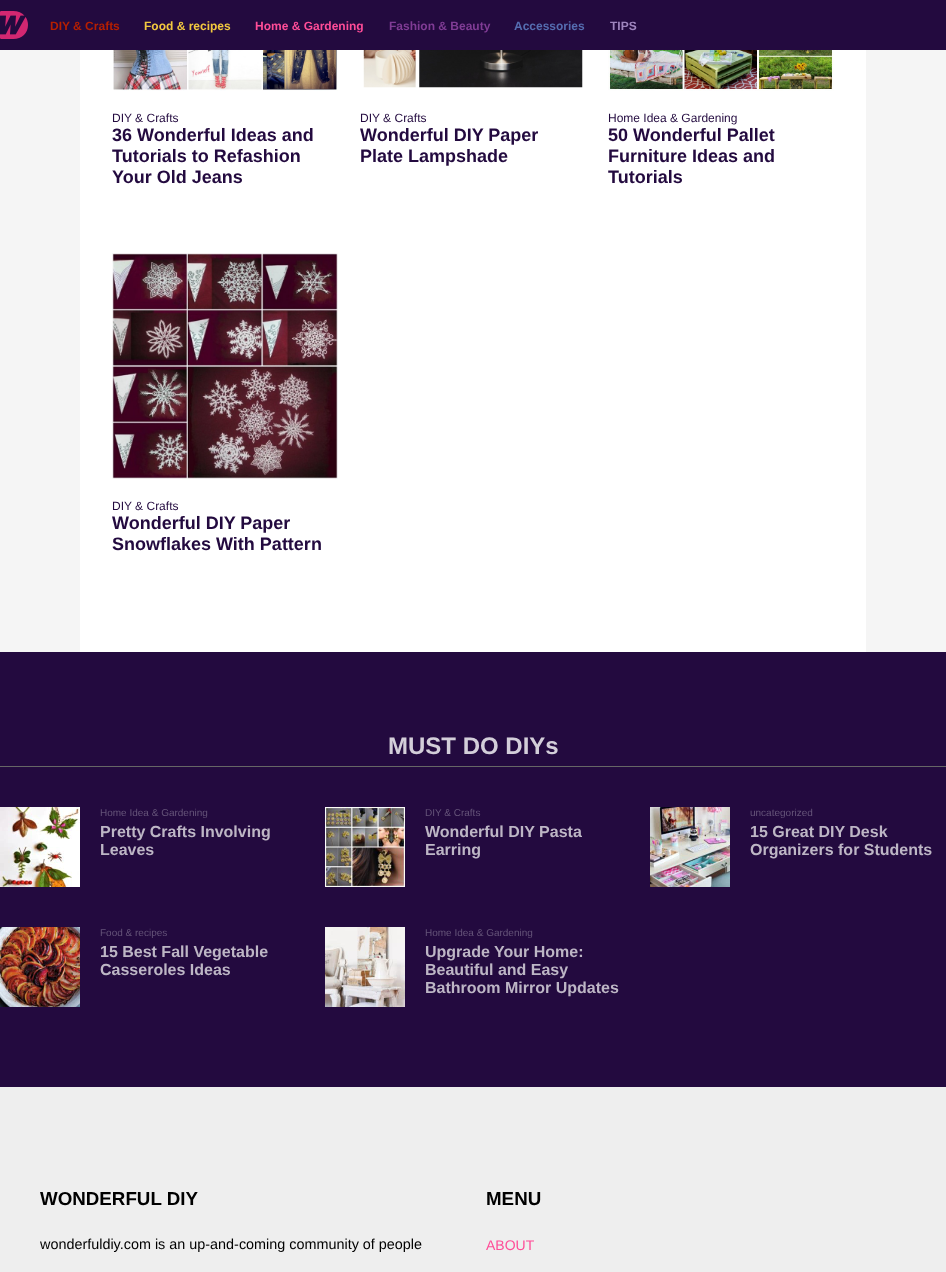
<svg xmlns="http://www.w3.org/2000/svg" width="946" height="1272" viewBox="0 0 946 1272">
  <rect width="100%" height="100%" fill="#f5f5f5"/>
  <rect x="0" y="0" width="946" height="50" fill="#230a3f"/>
  <image x="0" y="11" width="28" height="28" href="img1.png"/>
  <text x="50" y="30" font-family="Liberation Sans" font-size="12" font-weight="bold" fill="#b61f00">DIY &amp; Crafts</text>
  <text x="144" y="30" font-family="Liberation Sans" font-size="12" font-weight="bold" fill="#f2c83f">Food &amp; recipes</text>
  <text x="255" y="30" font-family="Liberation Sans" font-size="12" font-weight="bold" fill="#ff4d98">Home &amp; Gardening</text>
  <text x="389" y="30" font-family="Liberation Sans" font-size="12" font-weight="bold" fill="#803c95">Fashion &amp; Beauty</text>
  <text x="514" y="30" font-family="Liberation Sans" font-size="12" font-weight="bold" fill="#556db0">Accessories</text>
  <text x="610" y="30" font-family="Liberation Sans" font-size="12" font-weight="bold" fill="#9f85be">TIPS</text>
  <rect x="80" y="50" width="786" height="602" fill="#ffffff"/>
  <image x="113" y="50" width="225" height="41" href="img2.png"/>
  <text x="112" y="122" font-family="Liberation Sans" font-size="12" fill="#230a3f">DIY &amp; Crafts</text>
  <text x="112" y="141" font-family="Liberation Sans" font-size="18" font-weight="bold" fill="#230a3f">36 Wonderful Ideas and</text>
  <text x="112" y="162" font-family="Liberation Sans" font-size="18" font-weight="bold" fill="#230a3f">Tutorials to Refashion</text>
  <text x="112" y="183" font-family="Liberation Sans" font-size="18" font-weight="bold" fill="#230a3f">Your Old Jeans</text>
  <image x="363" y="50" width="220" height="38" href="img3.png"/>
  <text x="360" y="122" font-family="Liberation Sans" font-size="12" fill="#230a3f">DIY &amp; Crafts</text>
  <text x="360" y="141" font-family="Liberation Sans" font-size="18" font-weight="bold" fill="#230a3f">Wonderful DIY Paper</text>
  <text x="360" y="162" font-family="Liberation Sans" font-size="18" font-weight="bold" fill="#230a3f">Plate Lampshade</text>
  <image x="608" y="50" width="226" height="41" href="img4.png"/>
  <text x="608" y="122" font-family="Liberation Sans" font-size="12" fill="#230a3f">Home Idea &amp; Gardening</text>
  <text x="608" y="141" font-family="Liberation Sans" font-size="18" font-weight="bold" fill="#230a3f">50 Wonderful Pallet</text>
  <text x="608" y="162" font-family="Liberation Sans" font-size="18" font-weight="bold" fill="#230a3f">Furniture Ideas and</text>
  <text x="608" y="183" font-family="Liberation Sans" font-size="18" font-weight="bold" fill="#230a3f">Tutorials</text>
  <image x="112" y="253" width="226" height="226" href="img5.png"/>
  <text x="112" y="510" font-family="Liberation Sans" font-size="12" fill="#230a3f">DIY &amp; Crafts</text>
  <text x="112" y="529" font-family="Liberation Sans" font-size="18" font-weight="bold" fill="#230a3f">Wonderful DIY Paper</text>
  <text x="112" y="550" font-family="Liberation Sans" font-size="18" font-weight="bold" fill="#230a3f">Snowflakes With Pattern</text>
  <rect x="0" y="652" width="946" height="435" fill="#230a3f"/>
  <rect x="0" y="766" width="946" height="1" fill="#666666"/>
  <text x="388" y="754" font-family="Liberation Sans" font-size="24" font-weight="bold" fill="#d3ced9">MUST DO DIYs</text>
  <image x="0" y="807" width="80" height="80" href="img6.png"/>
  <text x="100" y="816" font-family="Liberation Sans" font-size="10" fill="#655479">Home Idea &amp; Gardening</text>
  <text x="100" y="837" font-family="Liberation Sans" font-size="16" font-weight="bold" fill="#bdb6c5">Pretty Crafts Involving</text>
  <text x="100" y="855" font-family="Liberation Sans" font-size="16" font-weight="bold" fill="#bdb6c5">Leaves</text>
  <image x="325" y="807" width="80" height="80" href="img7.png"/>
  <text x="425" y="816" font-family="Liberation Sans" font-size="10" fill="#655479">DIY &amp; Crafts</text>
  <text x="425" y="837" font-family="Liberation Sans" font-size="16" font-weight="bold" fill="#bdb6c5">Wonderful DIY Pasta</text>
  <text x="425" y="855" font-family="Liberation Sans" font-size="16" font-weight="bold" fill="#bdb6c5">Earring</text>
  <image x="650" y="807" width="80" height="80" href="img8.png"/>
  <text x="750" y="816" font-family="Liberation Sans" font-size="10" fill="#655479">uncategorized</text>
  <text x="750" y="837" font-family="Liberation Sans" font-size="16" font-weight="bold" fill="#bdb6c5">15 Great DIY Desk</text>
  <text x="750" y="855" font-family="Liberation Sans" font-size="16" font-weight="bold" fill="#bdb6c5">Organizers for Students</text>
  <image x="0" y="927" width="80" height="80" href="img9.png"/>
  <text x="100" y="936" font-family="Liberation Sans" font-size="10" fill="#655479">Food &amp; recipes</text>
  <text x="100" y="957" font-family="Liberation Sans" font-size="16" font-weight="bold" fill="#bdb6c5">15 Best Fall Vegetable</text>
  <text x="100" y="975" font-family="Liberation Sans" font-size="16" font-weight="bold" fill="#bdb6c5">Casseroles Ideas</text>
  <image x="325" y="927" width="80" height="80" href="img10.png"/>
  <text x="425" y="936" font-family="Liberation Sans" font-size="10" fill="#655479">Home Idea &amp; Gardening</text>
  <text x="425" y="957" font-family="Liberation Sans" font-size="16" font-weight="bold" fill="#bdb6c5">Upgrade Your Home:</text>
  <text x="425" y="975" font-family="Liberation Sans" font-size="16" font-weight="bold" fill="#bdb6c5">Beautiful and Easy</text>
  <text x="425" y="993" font-family="Liberation Sans" font-size="16" font-weight="bold" fill="#bdb6c5">Bathroom Mirror Updates</text>
  <rect x="0" y="1087" width="946" height="185" fill="#eeeeee"/>
  <text x="40" y="1205" font-family="Liberation Sans" font-size="18.75" font-weight="bold" fill="#000000">WONDERFUL DIY</text>
  <text x="40" y="1249" font-family="Liberation Sans" font-size="14.4" fill="#000000">wonderfuldiy.com is an up-and-coming community of people</text>
  <text x="486" y="1205" font-family="Liberation Sans" font-size="18.75" font-weight="bold" fill="#000000">MENU</text>
  <text x="486" y="1250" font-family="Liberation Sans" font-size="14" fill="#ff4d98">ABOUT</text>
</svg>
